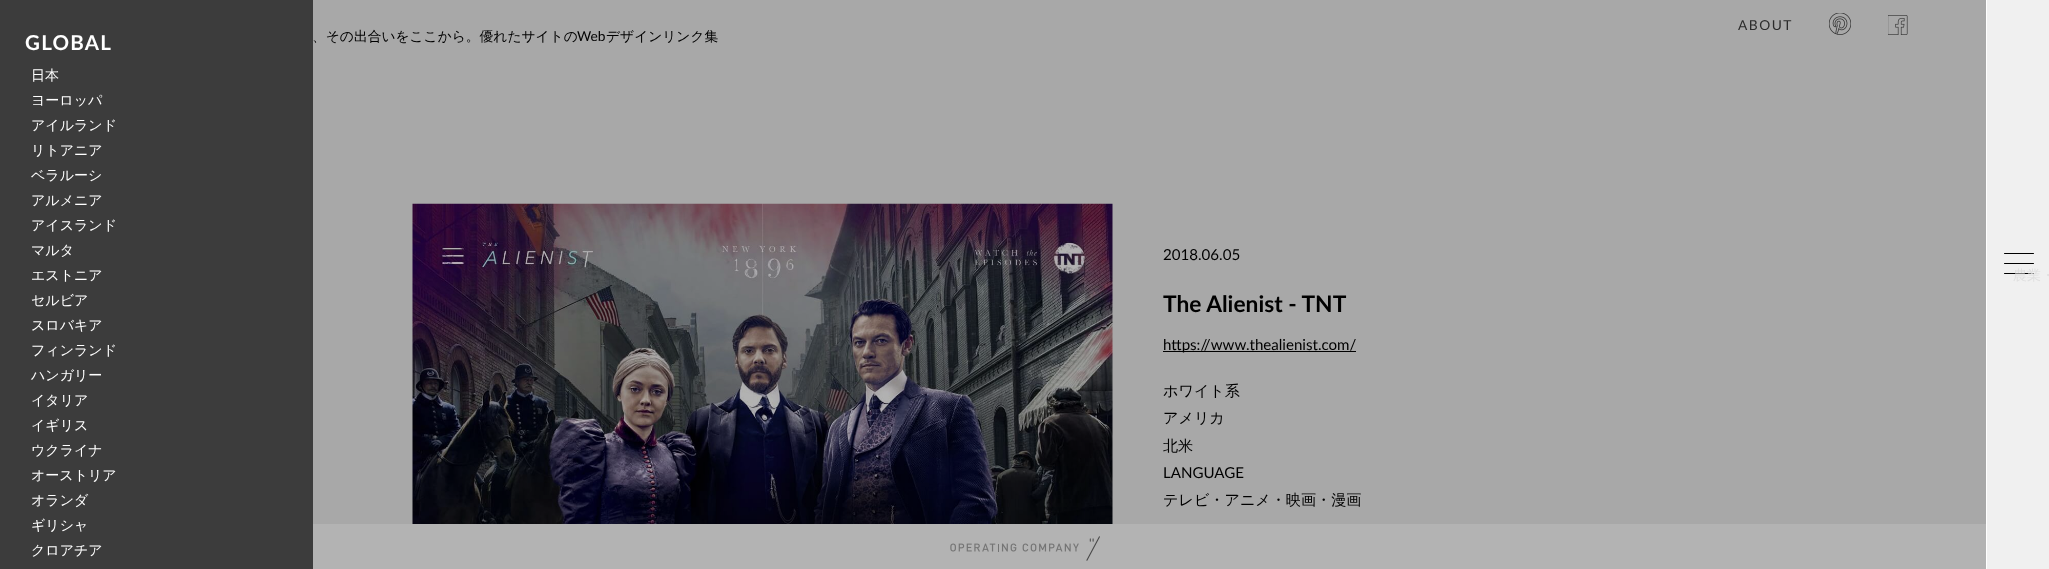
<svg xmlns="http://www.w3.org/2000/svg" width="2049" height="569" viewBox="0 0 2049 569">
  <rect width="100%" height="100%" fill="#a8a8a8"/>
  <rect x="0" y="0" width="313" height="569" fill="#3c3c3c"/>
  <text x="25" y="50" font-family="Lato" font-size="20.5" font-weight="bold" letter-spacing="1.25" fill="#ffffff">GLOBAL</text>
  <text x="31" y="80" font-family="WenQuanYi Zen Hei" font-size="14" font-weight="500" fill="#ffffff">日本</text>
  <text x="31" y="105" font-family="WenQuanYi Zen Hei" font-size="14" font-weight="500" fill="#ffffff">ヨーロッパ</text>
  <text x="31" y="130" font-family="WenQuanYi Zen Hei" font-size="14" font-weight="500" fill="#ffffff">アイルランド</text>
  <text x="31" y="155" font-family="WenQuanYi Zen Hei" font-size="14" font-weight="500" fill="#ffffff">リトアニア</text>
  <text x="31" y="180" font-family="WenQuanYi Zen Hei" font-size="14" font-weight="500" fill="#ffffff">ベラルーシ</text>
  <text x="31" y="205" font-family="WenQuanYi Zen Hei" font-size="14" font-weight="500" fill="#ffffff">アルメニア</text>
  <text x="31" y="230" font-family="WenQuanYi Zen Hei" font-size="14" font-weight="500" fill="#ffffff">アイスランド</text>
  <text x="31" y="255" font-family="WenQuanYi Zen Hei" font-size="14" font-weight="500" fill="#ffffff">マルタ</text>
  <text x="31" y="280" font-family="WenQuanYi Zen Hei" font-size="14" font-weight="500" fill="#ffffff">エストニア</text>
  <text x="31" y="305" font-family="WenQuanYi Zen Hei" font-size="14" font-weight="500" fill="#ffffff">セルビア</text>
  <text x="31" y="330" font-family="WenQuanYi Zen Hei" font-size="14" font-weight="500" fill="#ffffff">スロバキア</text>
  <text x="31" y="355" font-family="WenQuanYi Zen Hei" font-size="14" font-weight="500" fill="#ffffff">フィンランド</text>
  <text x="31" y="380" font-family="WenQuanYi Zen Hei" font-size="14" font-weight="500" fill="#ffffff">ハンガリー</text>
  <text x="31" y="405" font-family="WenQuanYi Zen Hei" font-size="14" font-weight="500" fill="#ffffff">イタリア</text>
  <text x="31" y="430" font-family="WenQuanYi Zen Hei" font-size="14" font-weight="500" fill="#ffffff">イギリス</text>
  <text x="31" y="455" font-family="WenQuanYi Zen Hei" font-size="14" font-weight="500" fill="#ffffff">ウクライナ</text>
  <text x="31" y="480" font-family="WenQuanYi Zen Hei" font-size="14" font-weight="500" fill="#ffffff">オーストリア</text>
  <text x="31" y="505" font-family="WenQuanYi Zen Hei" font-size="14" font-weight="500" fill="#ffffff">オランダ</text>
  <text x="31" y="530" font-family="WenQuanYi Zen Hei" font-size="14" font-weight="500" fill="#ffffff">ギリシャ</text>
  <text x="31" y="555" font-family="WenQuanYi Zen Hei" font-size="14" font-weight="500" fill="#ffffff">クロアチア</text>
  <text x="1738" y="30" font-family="Lato" font-size="13.75" letter-spacing="1.5" fill="#2b2b2b">ABOUT</text>
  <image x="1829" y="13" width="22" height="22" href="img1.png"/>
  <image x="1888" y="15" width="20" height="20" href="img2.png"/>
  <text x="312" y="41" font-family="WenQuanYi Zen Hei" font-size="13.75" font-weight="500" fill="#000000">、その出合いをここから。優れたサイトの</text>
  <text x="577" y="41" font-family="Lato" font-size="13.75" fill="#000000">Web</text>
  <text x="606" y="41" font-family="WenQuanYi Zen Hei" font-size="13.75" font-weight="500" fill="#000000">デザインリンク集</text>
  <rect x="1987" y="0" width="62" height="569" fill="#f0f0f0"/>
  <rect x="1986" y="0" width="1" height="569" fill="#ffffff"/>
  <rect x="2004" y="253" width="30" height="1" rx="0.5" fill="#000000"/>
  <rect x="2004" y="263" width="30" height="1" rx="0.5" fill="#000000"/>
  <rect x="2004" y="273" width="30" height="1" rx="0.5" fill="#000000"/>
  <image x="412" y="203" width="701" height="321" href="img3.png"/>
  <text x="1163" y="260" font-family="Lato" font-size="15.1" fill="#000000">2018.06.05</text>
  <text x="1163" y="312" font-family="Lato" font-size="22.75" font-weight="bold" fill="#000000">The Alienist - TNT</text>
  <rect x="1163" y="351" width="193" height="1" fill="#000000"/>
  <text x="1163" y="350" font-family="Lato" font-size="15.1" fill="#000000">https://www.thealienist.com/</text>
  <text x="1163" y="396" font-family="WenQuanYi Zen Hei" font-size="15.1" font-weight="500" fill="#000000">ホワイト系</text>
  <text x="1163" y="423" font-family="WenQuanYi Zen Hei" font-size="15.1" font-weight="500" fill="#000000">アメリカ</text>
  <text x="1163" y="451" font-family="WenQuanYi Zen Hei" font-size="15.1" font-weight="500" fill="#000000">北米</text>
  <text x="1163" y="478" font-family="Lato" font-size="15.1" fill="#000000">LANGUAGE</text>
  <text x="1163" y="505" font-family="WenQuanYi Zen Hei" font-size="15.1" font-weight="500" fill="#000000">テレビ・アニメ・映画・漫画</text>
  <text x="2013" y="280" font-family="WenQuanYi Zen Hei" font-size="14" font-weight="500" fill="#dfdfdf">農業・</text>
  <rect x="313" y="524" width="1673" height="45" fill="#b3b3b3"/>
  <image x="950" y="536" width="150" height="25" href="img4.png"/>
</svg>
